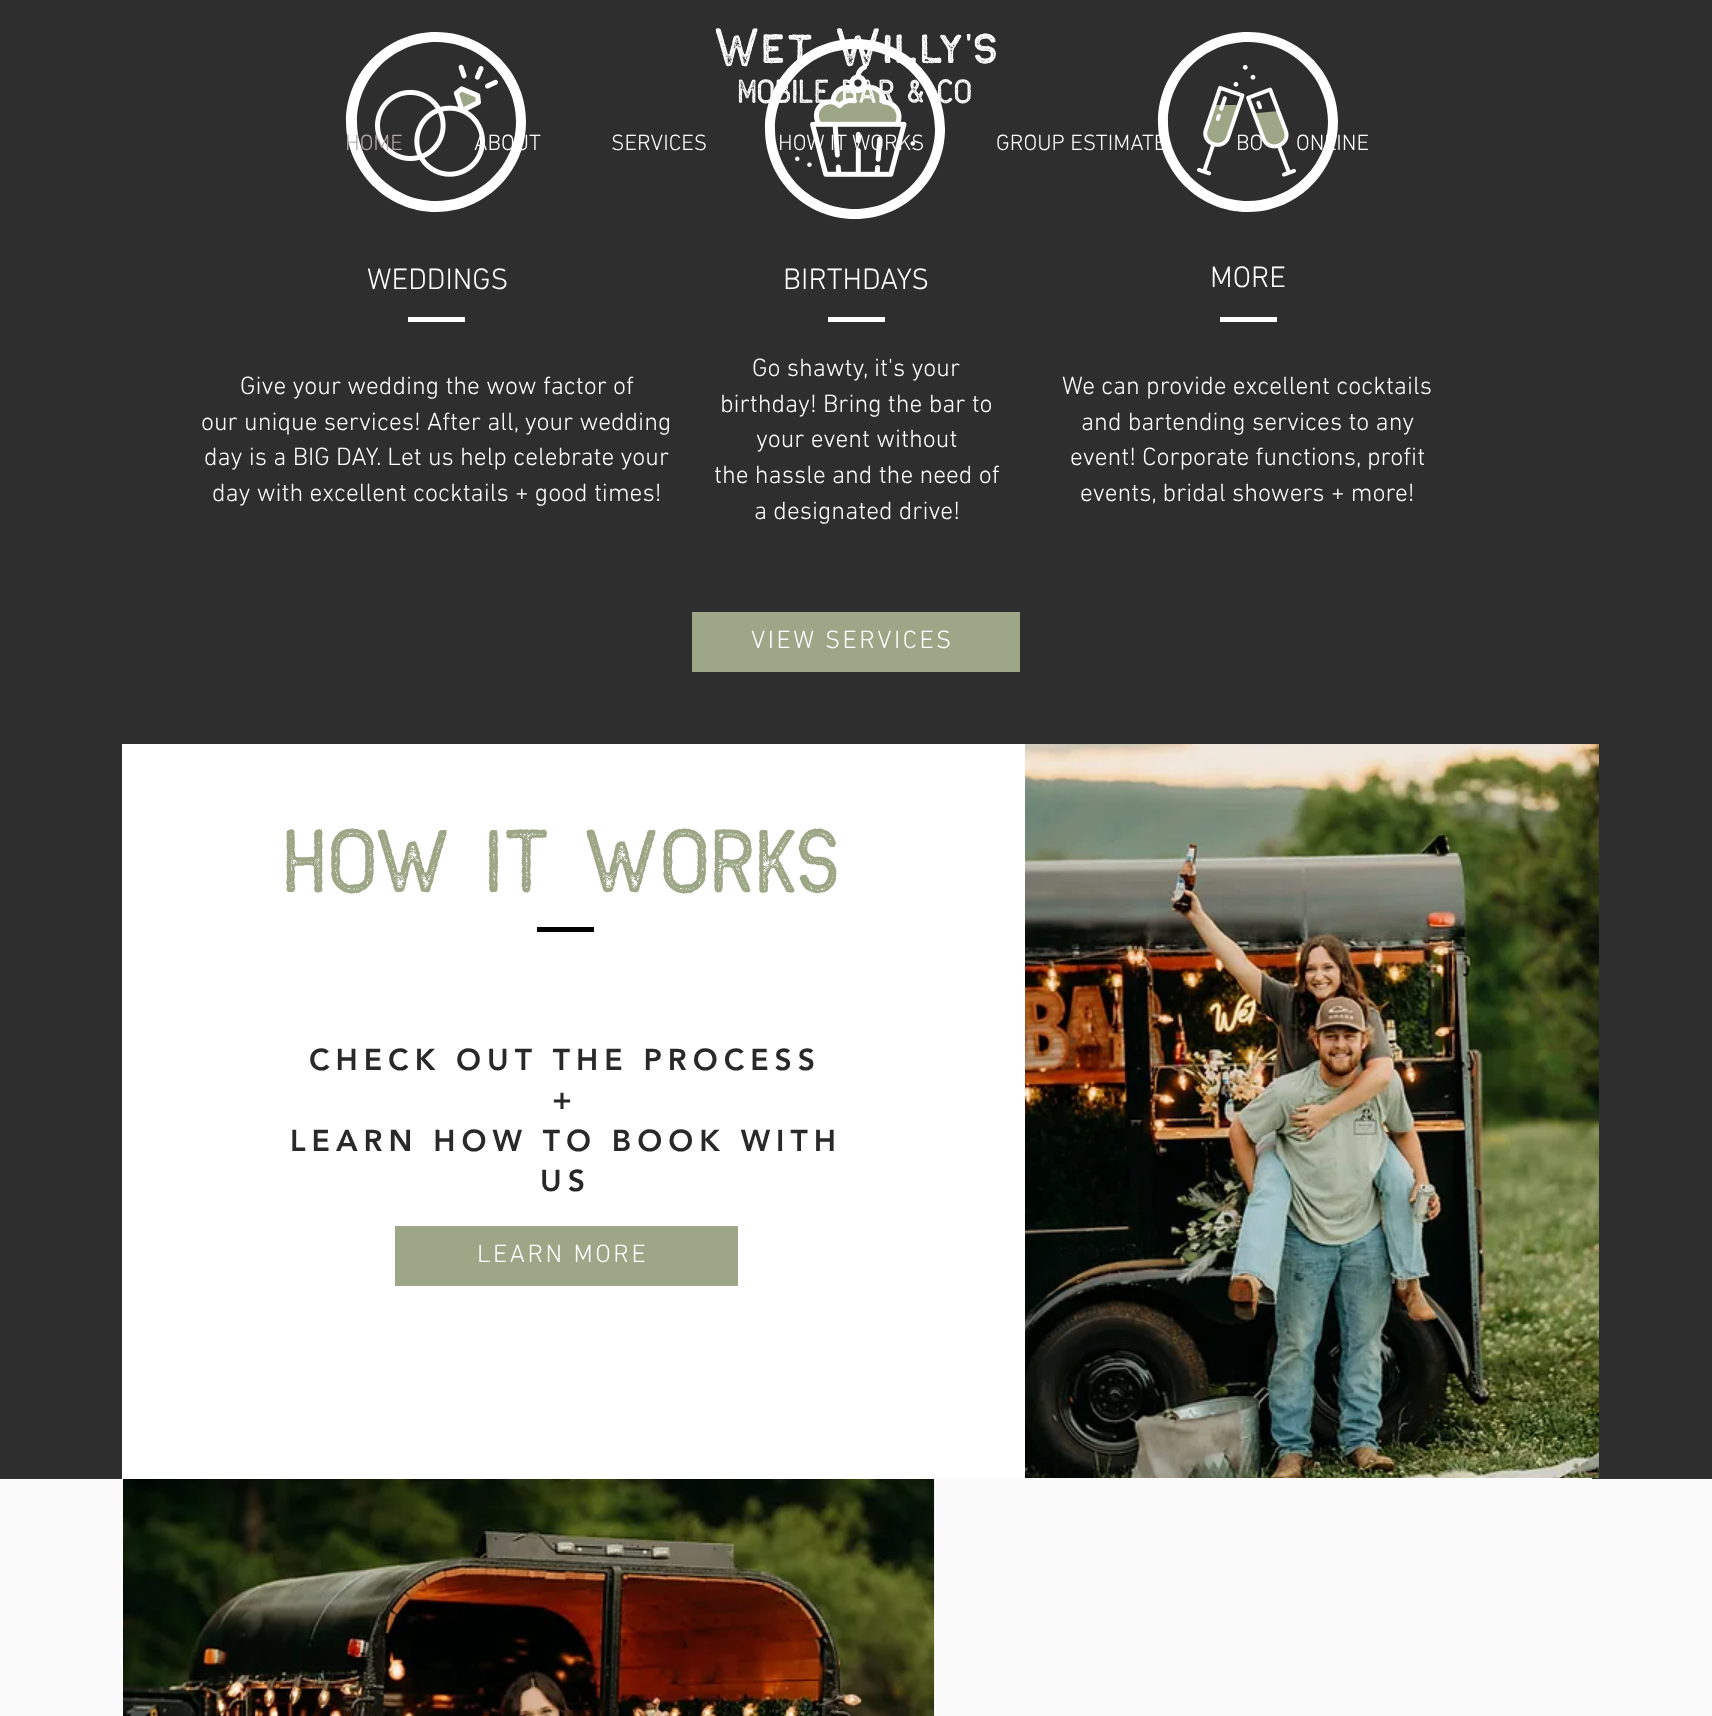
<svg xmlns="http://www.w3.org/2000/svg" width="1712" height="1716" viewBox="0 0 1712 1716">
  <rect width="100%" height="100%" fill="#2f2e2e"/>
  <path d="M855 219C805 219 765 179 765 129C765 79 805 39 855 39C905 39 945 79 945 129C945 179 905 219 855 219ZM855 49C811 49 775 85 775 129C775 173 811 209 855 209C899 209 935 173 935 129C935 85 899 49 855 49Z" fill="#ffffff"/>
  <image x="795" y="64" width="120" height="113" href="img2.png"/>
  <text x="716" y="63" font-family="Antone" font-size="39" fill="#ffffff">Wet Willy's</text>
  <text x="739" y="101" font-family="Antone" font-size="24" fill="#ffffff">MOBILE BAR &amp; CO</text>
  <image x="375" y="64" width="123" height="113" href="img1.png"/>
  <path d="M436 212C387 212 346 171 346 122C346 72 387 32 436 32C486 32 526 72 526 122C526 171 486 212 436 212ZM436 42C393 42 357 78 357 122C357 165 393 201 436 201C480 201 516 165 516 122C516 78 480 42 436 42Z" fill="#ffffff"/>
  <text x="345" y="150" font-family="'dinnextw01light'" font-size="22.5" font-weight="300" fill="#b0aaa9">HOME</text>
  <text x="474" y="150" font-family="'dinnextw01light'" font-size="22.5" font-weight="300" fill="#ffffff">ABOUT</text>
  <text x="611" y="150" font-family="'dinnextw01light'" font-size="22.5" font-weight="300" fill="#ffffff">SERVICES</text>
  <text x="778" y="150" font-family="'dinnextw01light'" font-size="22.5" font-weight="300" fill="#ffffff">HOW IT WORKS</text>
  <image x="1197" y="64" width="99" height="113" href="img3.png"/>
  <path d="M1248 212C1198 212 1158 171 1158 122C1158 72 1198 32 1248 32C1298 32 1338 72 1338 122C1338 171 1298 212 1248 212ZM1248 42C1204 42 1168 78 1168 122C1168 165 1204 201 1248 201C1292 201 1328 165 1328 122C1328 78 1292 42 1248 42Z" fill="#ffffff"/>
  <text x="996" y="150" font-family="'dinnextw01light'" font-size="22.5" font-weight="300" fill="#ffffff">GROUP ESTIMATE</text>
  <text x="1236" y="150" font-family="'dinnextw01light'" font-size="22.5" font-weight="300" fill="#ffffff">BO</text>
  <text x="1296" y="150" font-family="'dinnextw01light'" font-size="22.5" font-weight="300" fill="#ffffff">ONLINE</text>
  <text x="367" y="289" font-family="'dinnextw01light'" font-size="30" font-weight="300" fill="#ffffff">WEDDINGS</text>
  <text x="783" y="289" font-family="'dinnextw01light'" font-size="30" font-weight="300" fill="#ffffff">BIRTHDAYS</text>
  <text x="1210" y="287" font-family="'dinnextw01light'" font-size="30" font-weight="300" fill="#ffffff">MORE</text>
  <rect x="408" y="317" width="57" height="5" fill="#ffffff"/>
  <rect x="828" y="317" width="57" height="5" fill="#ffffff"/>
  <rect x="1220" y="317" width="57" height="5" fill="#ffffff"/>
  <text x="240" y="394" font-family="'dinnextw01light'" font-size="25.5" font-weight="300" fill="#ffffff">Give your wedding the wow factor of</text>
  <text x="201" y="430" font-family="'dinnextw01light'" font-size="25.5" font-weight="300" fill="#ffffff">our unique services! After all, your wedding</text>
  <text x="204" y="465" font-family="'dinnextw01light'" font-size="25.5" font-weight="300" fill="#ffffff">day is a BIG DAY. Let us help celebrate your</text>
  <text x="212" y="501" font-family="'dinnextw01light'" font-size="25.5" font-weight="300" fill="#ffffff">day with excellent cocktails + good times!</text>
  <text x="752" y="376" font-family="'dinnextw01light'" font-size="25.5" font-weight="300" fill="#ffffff">Go shawty, it's your</text>
  <text x="720" y="412" font-family="'dinnextw01light'" font-size="25.5" font-weight="300" fill="#ffffff">birthday! Bring the bar to</text>
  <text x="756" y="447" font-family="'dinnextw01light'" font-size="25.5" font-weight="300" fill="#ffffff">your event without</text>
  <text x="714" y="483" font-family="'dinnextw01light'" font-size="25.5" font-weight="300" fill="#ffffff">the hassle and the need of</text>
  <text x="754" y="519" font-family="'dinnextw01light'" font-size="25.5" font-weight="300" fill="#ffffff">a designated drive!</text>
  <text x="1062" y="394" font-family="'dinnextw01light'" font-size="25.5" font-weight="300" fill="#ffffff">We can provide excellent cocktails</text>
  <text x="1081" y="430" font-family="'dinnextw01light'" font-size="25.5" font-weight="300" fill="#ffffff">and bartending services to any</text>
  <text x="1070" y="465" font-family="'dinnextw01light'" font-size="25.5" font-weight="300" fill="#ffffff">event! Corporate functions, profit</text>
  <text x="1080" y="501" font-family="'dinnextw01light'" font-size="25.5" font-weight="300" fill="#ffffff">events, bridal showers + more!</text>
  <rect x="692" y="612" width="328" height="60" fill="#9da687"/>
  <text x="751" y="648" font-family="'dinnextw01light'" font-size="25.5" font-weight="300" letter-spacing="2.5" fill="#ffffff">VIEW SERVICES</text>
  <rect x="122" y="744" width="1470" height="735" fill="#ffffff"/>
  <text x="287" y="887" font-family="Antone" font-size="64.5" fill="#9da687">HOW IT WORKS</text>
  <image x="1025" y="744" width="574" height="735" href="img4.png"/>
  <rect x="537" y="927" width="57" height="5" fill="#000000"/>
  <text x="309" y="1070" font-family="'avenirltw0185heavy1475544'" font-size="30" font-weight="900" letter-spacing="6" fill="#292929">CHECK OUT THE PROCESS</text>
  <text x="552" y="1110" font-family="'avenirltw0185heavy1475544'" font-size="30" font-weight="900" letter-spacing="6" fill="#292929">+</text>
  <text x="290" y="1151" font-family="'avenirltw0185heavy1475544'" font-size="30" font-weight="900" letter-spacing="6" fill="#292929">LEARN HOW TO BOOK WITH</text>
  <text x="540" y="1191" font-family="'avenirltw0185heavy1475544'" font-size="30" font-weight="900" letter-spacing="6" fill="#292929">US</text>
  <rect x="395" y="1226" width="343" height="60" fill="#9da687"/>
  <text x="477" y="1262" font-family="'dinnextw01light'" font-size="25.5" font-weight="300" letter-spacing="2.5" fill="#ffffff">LEARN MORE</text>
  <rect x="0" y="1479" width="1712" height="237" fill="#fafafa"/>
  <image x="123" y="1479" width="812" height="237" href="img5.png"/>
</svg>
